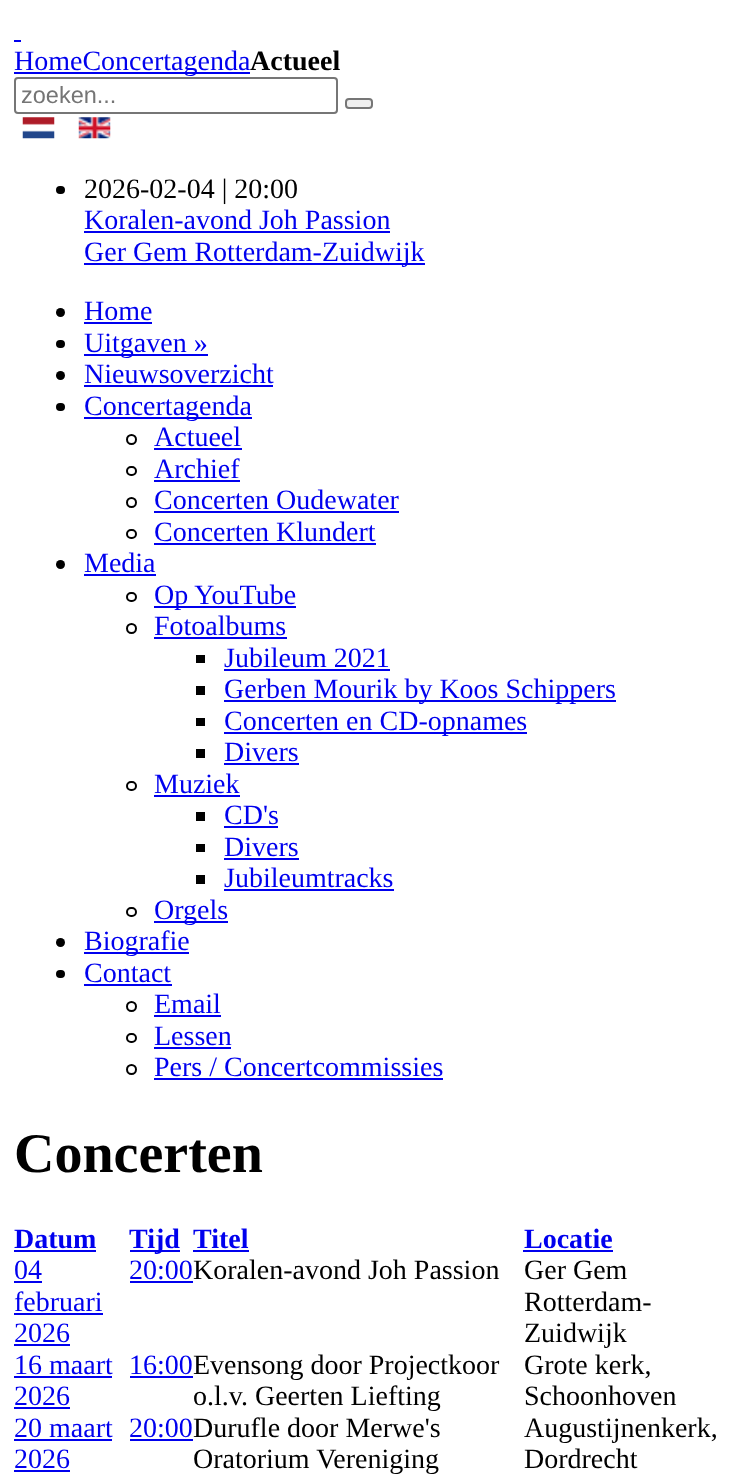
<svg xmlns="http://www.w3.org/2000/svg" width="731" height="1484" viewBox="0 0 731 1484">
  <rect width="100%" height="100%" fill="#ffffff"/>
  <rect x="14" y="40" width="7" height="2" fill="#0000ee"/>
  <rect x="14" y="72" width="236" height="2" fill="#0000ee"/>
  <text x="14" y="70" font-family="Liberation Serif" font-size="28" fill="#0000ee">HomeConcertagenda</text>
  <text x="250" y="70" font-family="Liberation Serif" font-size="28" font-weight="bold" fill="#000000">Actueel</text>
  <rect x="15" y="78" width="322" height="35" rx="3" fill="none" stroke="#767676" stroke-width="2"/>
  <text x="21" y="103" font-family="Liberation Sans" font-size="23.5" fill="#757575">zoeken...</text>
  <rect x="346" y="99" width="26" height="9" rx="3" fill="#efefef" stroke="#767676" stroke-width="2"/>
  <image x="22" y="117" width="33" height="22" href="img1.png"/>
  <image x="78" y="117" width="33" height="22" href="img2.png"/>
  <rect x="56" y="186" width="9" height="8" rx="4" fill="#000000"/>
  <text x="84" y="198" font-family="Liberation Serif" font-size="28" fill="#000000">2026-02-04 | 20:00</text>
  <text x="84" y="229" font-family="Liberation Serif" font-size="28" fill="#0000ee">Koralen-avond Joh Passion</text>
  <rect x="84" y="231" width="306" height="2" fill="#0000ee"/>
  <rect x="84" y="263" width="341" height="2" fill="#0000ee"/>
  <text x="84" y="261" font-family="Liberation Serif" font-size="28" fill="#0000ee">Ger Gem Rotterdam-Zuidwijk</text>
  <circle cx="60.5" cy="312.5" r="4.5" fill="#000000"/>
  <text x="84" y="320" font-family="Liberation Serif" font-size="28" fill="#0000ee">Home</text>
  <rect x="84" y="322" width="68" height="2" fill="#0000ee"/>
  <rect x="56" y="340" width="9" height="8" rx="4" fill="#000000"/>
  <rect x="84" y="354" width="124" height="2" fill="#0000ee"/>
  <text x="84" y="352" font-family="Liberation Serif" font-size="28" fill="#0000ee">Uitgaven »</text>
  <circle cx="60.5" cy="375.5" r="4.5" fill="#000000"/>
  <text x="84" y="383" font-family="Liberation Serif" font-size="28" fill="#0000ee">Nieuwsoverzicht</text>
  <rect x="84" y="385" width="189" height="2" fill="#0000ee"/>
  <rect x="56" y="403" width="9" height="8" rx="4" fill="#000000"/>
  <rect x="84" y="417" width="168" height="2" fill="#0000ee"/>
  <text x="84" y="415" font-family="Liberation Serif" font-size="28" fill="#0000ee">Concertagenda</text>
  <circle cx="131.5" cy="439.5" r="4.5" fill="none" stroke="#000000" stroke-width="2"/>
  <text x="154" y="446" font-family="Liberation Serif" font-size="28" fill="#0000ee">Actueel</text>
  <rect x="154" y="448" width="88" height="2" fill="#0000ee"/>
  <rect x="127" y="467" width="9" height="8" rx="4" fill="none" stroke="#000000" stroke-width="2"/>
  <text x="154" y="478" font-family="Liberation Serif" font-size="28" fill="#0000ee">Archief</text>
  <rect x="154" y="480" width="86" height="2" fill="#0000ee"/>
  <circle cx="131.5" cy="502.5" r="4.5" fill="none" stroke="#000000" stroke-width="2"/>
  <text x="154" y="509" font-family="Liberation Serif" font-size="28" fill="#0000ee">Concerten Oudewater</text>
  <rect x="154" y="511" width="245" height="2" fill="#0000ee"/>
  <rect x="127" y="530" width="9" height="8" rx="4" fill="none" stroke="#000000" stroke-width="2"/>
  <text x="154" y="541" font-family="Liberation Serif" font-size="28" fill="#0000ee">Concerten Klundert</text>
  <rect x="154" y="543" width="222" height="2" fill="#0000ee"/>
  <circle cx="60.5" cy="564.5" r="4.5" fill="#000000"/>
  <text x="84" y="572" font-family="Liberation Serif" font-size="28" fill="#0000ee">Media</text>
  <rect x="84" y="574" width="72" height="2" fill="#0000ee"/>
  <rect x="127" y="593" width="9" height="8" rx="4" fill="none" stroke="#000000" stroke-width="2"/>
  <rect x="154" y="606" width="142" height="2" fill="#0000ee"/>
  <text x="154" y="604" font-family="Liberation Serif" font-size="28" fill="#0000ee">Op YouTube</text>
  <circle cx="131.5" cy="628.5" r="4.5" fill="none" stroke="#000000" stroke-width="2"/>
  <text x="154" y="635" font-family="Liberation Serif" font-size="28" fill="#0000ee">Fotoalbums</text>
  <rect x="154" y="637" width="133" height="2" fill="#0000ee"/>
  <rect x="196" y="655" width="9" height="8" fill="#000000"/>
  <text x="224" y="667" font-family="Liberation Serif" font-size="28" fill="#0000ee">Jubileum 2021</text>
  <rect x="224" y="669" width="166" height="2" fill="#0000ee"/>
  <rect x="196" y="686" width="9" height="9" fill="#000000"/>
  <rect x="224" y="700" width="392" height="2" fill="#0000ee"/>
  <text x="224" y="698" font-family="Liberation Serif" font-size="28" fill="#0000ee">Gerben Mourik by Koos Schippers</text>
  <rect x="196" y="718" width="9" height="8" fill="#000000"/>
  <rect x="224" y="732" width="303" height="2" fill="#0000ee"/>
  <text x="224" y="730" font-family="Liberation Serif" font-size="28" fill="#0000ee">Concerten en CD-opnames</text>
  <rect x="196" y="749" width="9" height="9" fill="#000000"/>
  <text x="224" y="761" font-family="Liberation Serif" font-size="28" fill="#0000ee">Divers</text>
  <rect x="224" y="763" width="75" height="2" fill="#0000ee"/>
  <rect x="127" y="782" width="9" height="8" rx="4" fill="none" stroke="#000000" stroke-width="2"/>
  <text x="154" y="793" font-family="Liberation Serif" font-size="28" fill="#0000ee">Muziek</text>
  <rect x="154" y="795" width="86" height="2" fill="#0000ee"/>
  <rect x="196" y="812" width="9" height="9" fill="#000000"/>
  <text x="224" y="824" font-family="Liberation Serif" font-size="28" fill="#0000ee">CD's</text>
  <rect x="224" y="826" width="54" height="2" fill="#0000ee"/>
  <rect x="196" y="844" width="9" height="8" fill="#000000"/>
  <text x="224" y="856" font-family="Liberation Serif" font-size="28" fill="#0000ee">Divers</text>
  <rect x="224" y="858" width="75" height="2" fill="#0000ee"/>
  <rect x="196" y="875" width="9" height="9" fill="#000000"/>
  <text x="224" y="887" font-family="Liberation Serif" font-size="28" fill="#0000ee">Jubileumtracks</text>
  <rect x="224" y="889" width="170" height="2" fill="#0000ee"/>
  <rect x="127" y="908" width="9" height="8" rx="4" fill="none" stroke="#000000" stroke-width="2"/>
  <rect x="154" y="921" width="74" height="2" fill="#0000ee"/>
  <text x="154" y="919" font-family="Liberation Serif" font-size="28" fill="#0000ee">Orgels</text>
  <circle cx="60.5" cy="942.5" r="4.5" fill="#000000"/>
  <rect x="84" y="952" width="105" height="2" fill="#0000ee"/>
  <text x="84" y="950" font-family="Liberation Serif" font-size="28" fill="#0000ee">Biografie</text>
  <rect x="56" y="970" width="9" height="8" rx="4" fill="#000000"/>
  <text x="84" y="982" font-family="Liberation Serif" font-size="28" fill="#0000ee">Contact</text>
  <rect x="84" y="984" width="88" height="2" fill="#0000ee"/>
  <circle cx="131.5" cy="1006.5" r="4.5" fill="none" stroke="#000000" stroke-width="2"/>
  <text x="154" y="1013" font-family="Liberation Serif" font-size="28" fill="#0000ee">Email</text>
  <rect x="154" y="1015" width="67" height="2" fill="#0000ee"/>
  <rect x="127" y="1034" width="9" height="8" rx="4" fill="none" stroke="#000000" stroke-width="2"/>
  <text x="154" y="1045" font-family="Liberation Serif" font-size="28" fill="#0000ee">Lessen</text>
  <rect x="154" y="1047" width="77" height="2" fill="#0000ee"/>
  <circle cx="131.5" cy="1069.5" r="4.5" fill="none" stroke="#000000" stroke-width="2"/>
  <text x="154" y="1076" font-family="Liberation Serif" font-size="28" fill="#0000ee">Pers / Concertcommissies</text>
  <rect x="154" y="1078" width="289" height="2" fill="#0000ee"/>
  <text x="14" y="1172" font-family="Liberation Serif" font-size="56" font-weight="bold" fill="#000000">Concerten</text>
  <text x="14" y="1248" font-family="Liberation Serif" font-size="28" font-weight="bold" fill="#0000ee">Datum</text>
  <rect x="14" y="1250" width="82" height="2" fill="#0000ee"/>
  <rect x="130" y="1250" width="50" height="2" fill="#0000ee"/>
  <text x="129" y="1248" font-family="Liberation Serif" font-size="28" font-weight="bold" fill="#0000ee">Tijd</text>
  <text x="193" y="1248" font-family="Liberation Serif" font-size="28" font-weight="bold" fill="#0000ee">Titel</text>
  <rect x="193" y="1250" width="56" height="2" fill="#0000ee"/>
  <text x="524" y="1248" font-family="Liberation Serif" font-size="28" font-weight="bold" fill="#0000ee">Locatie</text>
  <rect x="523" y="1250" width="90" height="2" fill="#0000ee"/>
  <text x="14" y="1279" font-family="Liberation Serif" font-size="28" fill="#0000ee">04</text>
  <rect x="14" y="1281" width="28" height="2" fill="#0000ee"/>
  <text x="14" y="1311" font-family="Liberation Serif" font-size="28" fill="#0000ee">februari</text>
  <rect x="14" y="1313" width="89" height="2" fill="#0000ee"/>
  <text x="14" y="1342" font-family="Liberation Serif" font-size="28" fill="#0000ee">2026</text>
  <rect x="14" y="1344" width="56" height="2" fill="#0000ee"/>
  <text x="129" y="1279" font-family="Liberation Serif" font-size="28" fill="#0000ee">20:00</text>
  <rect x="130" y="1281" width="63" height="2" fill="#0000ee"/>
  <text x="193" y="1279" font-family="Liberation Serif" font-size="28" fill="#000000">Koralen-avond Joh Passion</text>
  <text x="524" y="1279" font-family="Liberation Serif" font-size="28" fill="#000000">Ger Gem</text>
  <text x="524" y="1311" font-family="Liberation Serif" font-size="28" fill="#000000">Rotterdam-</text>
  <text x="524" y="1342" font-family="Liberation Serif" font-size="28" fill="#000000">Zuidwijk</text>
  <text x="14" y="1374" font-family="Liberation Serif" font-size="28" fill="#0000ee">16 maart</text>
  <rect x="14" y="1376" width="98" height="2" fill="#0000ee"/>
  <text x="14" y="1405" font-family="Liberation Serif" font-size="28" fill="#0000ee">2026</text>
  <rect x="14" y="1407" width="56" height="2" fill="#0000ee"/>
  <text x="129" y="1374" font-family="Liberation Serif" font-size="28" fill="#0000ee">16:00</text>
  <rect x="130" y="1376" width="63" height="2" fill="#0000ee"/>
  <text x="193" y="1374" font-family="Liberation Serif" font-size="28" fill="#000000">Evensong door Projectkoor</text>
  <text x="193" y="1405" font-family="Liberation Serif" font-size="28" fill="#000000">o.l.v. Geerten Liefting</text>
  <text x="524" y="1374" font-family="Liberation Serif" font-size="28" fill="#000000">Grote kerk,</text>
  <text x="524" y="1405" font-family="Liberation Serif" font-size="28" fill="#000000">Schoonhoven</text>
  <text x="14" y="1437" font-family="Liberation Serif" font-size="28" fill="#0000ee">20 maart</text>
  <rect x="14" y="1439" width="98" height="2" fill="#0000ee"/>
  <text x="14" y="1468" font-family="Liberation Serif" font-size="28" fill="#0000ee">2026</text>
  <rect x="14" y="1470" width="56" height="2" fill="#0000ee"/>
  <text x="129" y="1437" font-family="Liberation Serif" font-size="28" fill="#0000ee">20:00</text>
  <rect x="130" y="1439" width="63" height="2" fill="#0000ee"/>
  <text x="193" y="1437" font-family="Liberation Serif" font-size="28" fill="#000000">Durufle door Merwe's</text>
  <text x="193" y="1468" font-family="Liberation Serif" font-size="28" fill="#000000">Oratorium Vereniging</text>
  <text x="524" y="1437" font-family="Liberation Serif" font-size="28" fill="#000000">Augustijnenkerk,</text>
  <text x="524" y="1468" font-family="Liberation Serif" font-size="28" fill="#000000">Dordrecht</text>
</svg>
